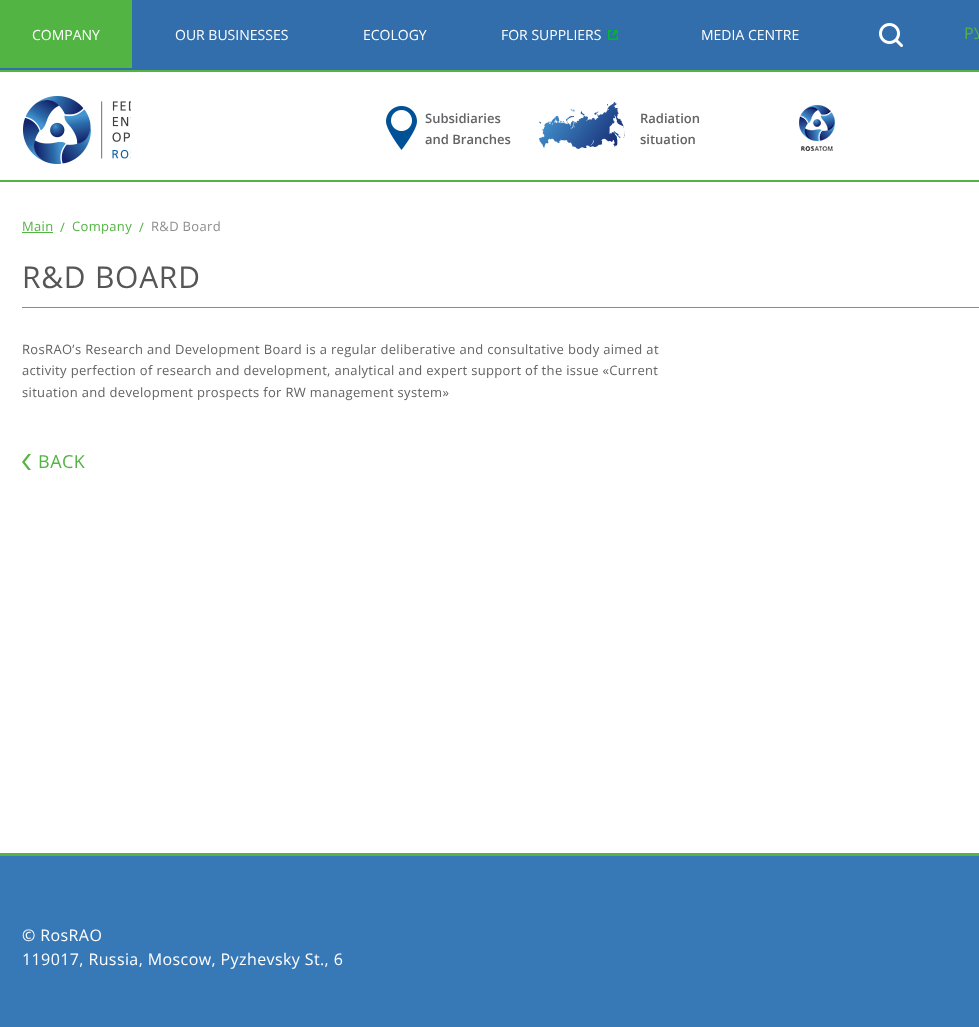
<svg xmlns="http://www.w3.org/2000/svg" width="979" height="1027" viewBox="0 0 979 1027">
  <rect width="100%" height="100%" fill="#ffffff"/>
  <rect x="0" y="0" width="979" height="70" fill="#336eac"/>
  <rect x="0" y="70" width="979" height="2" fill="#52b442"/>
  <rect x="0" y="0" width="132" height="68" fill="#52b442"/>
  <text x="32" y="40" font-family="Open Sans" font-size="14" fill="#ffffff">COMPANY</text>
  <text x="175" y="40" font-family="Open Sans" font-size="14" fill="#ffffff">OUR BUSINESSES</text>
  <text x="363" y="40" font-family="Open Sans" font-size="14" fill="#ffffff">ECOLOGY</text>
  <text x="501" y="40" font-family="Open Sans" font-size="14" fill="#ffffff">FOR SUPPLIERS</text>
  <image x="608" y="30" width="10" height="10" href="img1.png"/>
  <text x="701" y="40" font-family="Open Sans" font-size="14" fill="#ffffff">MEDIA CENTRE</text>
  <image x="879" y="23" width="24" height="24" href="img2.png"/>
  <text x="964" y="39" font-family="Open Sans" font-size="16" fill="#52b442">РУ</text>
  <rect x="0" y="180" width="979" height="2" fill="#52b442"/>
  <image x="23" y="96" width="108" height="68" href="img3.png"/>
  <image x="386" y="106" width="31" height="44" href="img4.png"/>
  <text x="425" y="123" font-family="Open Sans" font-size="13" font-weight="600" fill="#636366">Subsidiaries</text>
  <text x="425" y="144" font-family="Open Sans" font-size="13" font-weight="600" fill="#636366">and Branches</text>
  <image x="539" y="102" width="86" height="47" href="img5.png"/>
  <text x="640" y="123" font-family="Open Sans" font-size="13" font-weight="600" fill="#636366">Radiation</text>
  <text x="640" y="144" font-family="Open Sans" font-size="13" font-weight="600" fill="#636366">situation</text>
  <image x="799" y="105" width="36" height="46" href="img6.png"/>
  <text x="22" y="231" font-family="Open Sans" font-size="13" letter-spacing="0.33" fill="#52b442">Main</text>
  <rect x="22" y="232" width="31" height="1" fill="#52b442"/>
  <text x="60" y="232" font-family="Open Sans" font-size="13" letter-spacing="0.33" fill="#52b442">/</text>
  <text x="72" y="231" font-family="Open Sans" font-size="13" letter-spacing="0.33" fill="#52b442">Company</text>
  <text x="139" y="232" font-family="Open Sans" font-size="13" letter-spacing="0.33" fill="#52b442">/</text>
  <text x="151" y="231" font-family="Open Sans" font-size="13" letter-spacing="0.33" fill="#8e8e8e">R&amp;D Board</text>
  <rect x="22" y="307" width="957" height="1" fill="#52b442"/>
  <text x="22" y="288" font-family="Open Sans" font-size="30" letter-spacing="0.75" fill="#565656">R&amp;D BOARD</text>
  <text x="22" y="354" font-family="Open Sans" font-size="13" letter-spacing="0.33" fill="#636366">RosRAO’s Research and Development Board is a regular deliberative and consultative body aimed at</text>
  <text x="22" y="375" font-family="Open Sans" font-size="13" letter-spacing="0.33" fill="#636366">activity perfection of research and development, analytical and expert support of the issue «Current</text>
  <text x="22" y="397" font-family="Open Sans" font-size="13" letter-spacing="0.33" fill="#636366">situation and development prospects for RW management system»</text>
  <image x="22" y="454" width="9" height="16" href="img7.png"/>
  <text x="38" y="468" font-family="Open Sans" font-size="18" letter-spacing="0.5" fill="#52b442">BACK</text>
  <rect x="0" y="856" width="979" height="171" fill="#3778b7"/>
  <rect x="0" y="853" width="979" height="3" fill="#52b442"/>
  <text x="22" y="941" font-family="Open Sans" font-size="16" letter-spacing="0.4" fill="#ffffff">© RosRAO</text>
  <text x="22" y="965" font-family="Open Sans" font-size="16" letter-spacing="0.4" fill="#ffffff">119017, Russia, Moscow, Pyzhevsky St., 6</text>
</svg>
